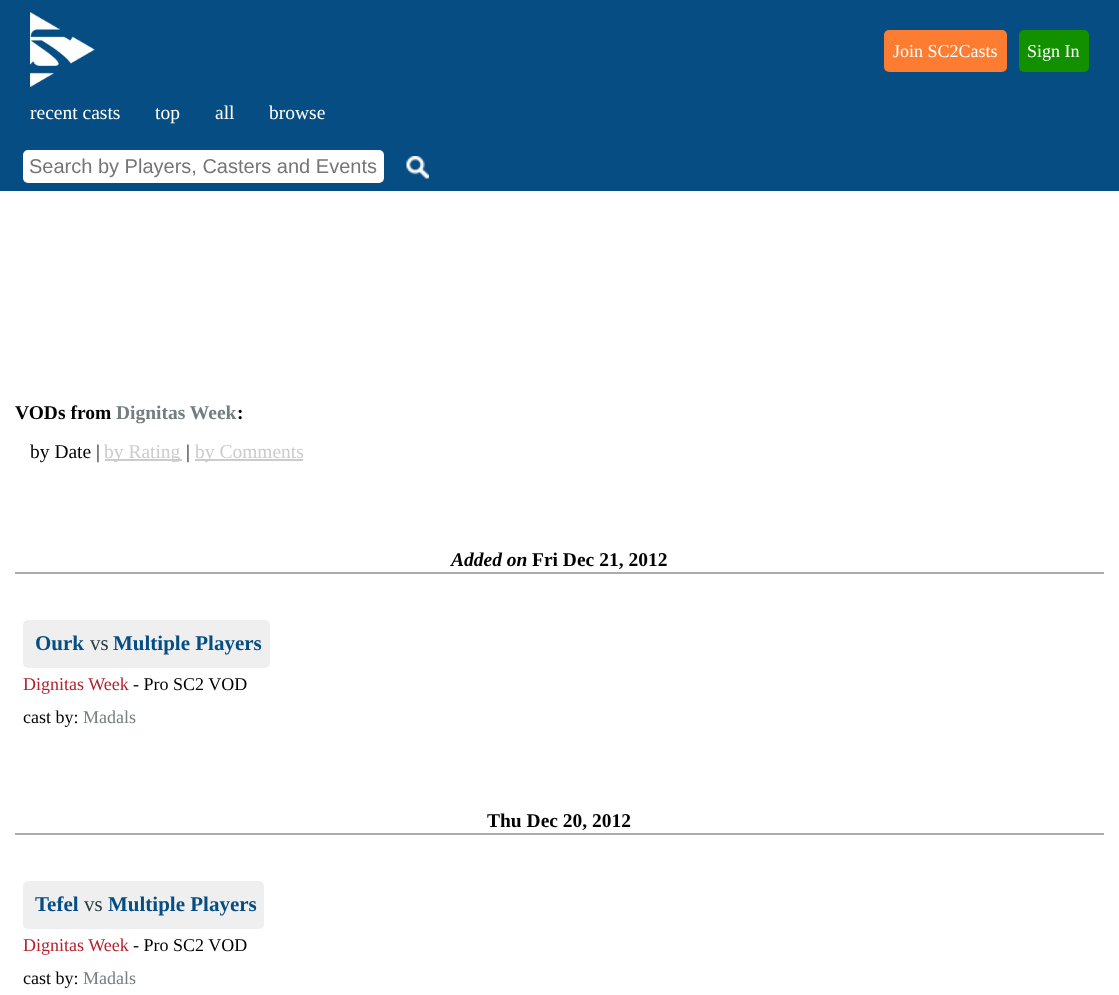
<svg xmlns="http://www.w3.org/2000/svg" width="1119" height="995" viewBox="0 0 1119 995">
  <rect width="100%" height="100%" fill="#054d83"/>
  <rect x="884" y="30" width="123" height="42" rx="5" fill="#fc7c31"/>
  <text x="893" y="57" font-family="Liberation Serif" font-size="18" fill="#ffffff">Join SC2Casts</text>
  <rect x="1019" y="30" width="70" height="42" rx="5" fill="#129000"/>
  <text x="1027" y="57" font-family="Liberation Serif" font-size="18" fill="#ffffff">Sign In</text>
  <image x="30" y="12" width="65" height="75" href="img1.png"/>
  <text x="30" y="119" font-family="Liberation Serif" font-size="19.5" fill="#ffffff">recent casts</text>
  <text x="155" y="119" font-family="Liberation Serif" font-size="19.5" fill="#ffffff">top</text>
  <text x="215" y="119" font-family="Liberation Serif" font-size="19.5" fill="#ffffff">all</text>
  <text x="269" y="119" font-family="Liberation Serif" font-size="19.5" fill="#ffffff">browse</text>
  <rect x="23" y="150" width="361" height="33" rx="5" fill="#ffffff"/>
  <text x="29" y="173" font-family="Liberation Sans" font-size="20" fill="#757575">Search by Players, Casters and Events</text>
  <image x="406" y="156" width="23" height="23" href="img2.png"/>
  <rect x="0" y="191" width="1119" height="804" fill="#ffffff"/>
  <text x="15" y="419" font-family="Liberation Serif" font-size="19.5" font-weight="bold" fill="#000000">VODs from</text>
  <text x="116" y="419" font-family="Liberation Serif" font-size="19.5" font-weight="bold" fill="#747e80">Dignitas Week</text>
  <text x="237" y="419" font-family="Liberation Serif" font-size="19.5" font-weight="bold" fill="#000000">:</text>
  <text x="30" y="458" font-family="Liberation Serif" font-size="19.5" fill="#000000">by Date |</text>
  <rect x="105" y="459" width="77" height="2" fill="#cccccc"/>
  <text x="104" y="458" font-family="Liberation Serif" font-size="19.5" fill="#cccccc">by Rating</text>
  <text x="186" y="458" font-family="Liberation Serif" font-size="19.5" fill="#000000">|</text>
  <rect x="195" y="459" width="108" height="2" fill="#cccccc"/>
  <text x="195" y="458" font-family="Liberation Serif" font-size="19.5" fill="#cccccc">by Comments</text>
  <rect x="15" y="572" width="1089" height="2" fill="#ababab"/>
  <text x="451" y="566" font-family="Liberation Serif" font-size="19.5" font-weight="bold" font-style="italic" fill="#000000">Added on</text>
  <text x="532" y="566" font-family="Liberation Serif" font-size="19.5" font-weight="bold" fill="#000000">Fri Dec 21, 2012</text>
  <rect x="23" y="620" width="247" height="48" rx="5" fill="#efefef"/>
  <text x="35" y="650" font-family="Liberation Serif" font-size="21" font-weight="bold" fill="#054d83">Ourk</text>
  <text x="90" y="650" font-family="Liberation Serif" font-size="21" fill="#2b3e42">vs</text>
  <text x="113" y="650" font-family="Liberation Serif" font-size="21" font-weight="bold" fill="#054d83">Multiple Players</text>
  <text x="23" y="690" font-family="Liberation Serif" font-size="18" fill="#b6212d">Dignitas Week</text>
  <text x="133" y="690" font-family="Liberation Serif" font-size="18" fill="#000000">- Pro SC2 VOD</text>
  <text x="23" y="723" font-family="Liberation Serif" font-size="18" fill="#000000">cast by:</text>
  <text x="83" y="723" font-family="Liberation Serif" font-size="18" fill="#747e80">Madals</text>
  <rect x="15" y="833" width="1089" height="2" fill="#ababab"/>
  <text x="487" y="827" font-family="Liberation Serif" font-size="19.5" font-weight="bold" fill="#000000">Thu Dec 20, 2012</text>
  <rect x="23" y="881" width="241" height="48" rx="5" fill="#efefef"/>
  <text x="35" y="911" font-family="Liberation Serif" font-size="21" font-weight="bold" fill="#054d83">Tefel</text>
  <text x="84" y="911" font-family="Liberation Serif" font-size="21" fill="#2b3e42">vs</text>
  <text x="108" y="911" font-family="Liberation Serif" font-size="21" font-weight="bold" fill="#054d83">Multiple Players</text>
  <text x="23" y="951" font-family="Liberation Serif" font-size="18" fill="#b6212d">Dignitas Week</text>
  <text x="133" y="951" font-family="Liberation Serif" font-size="18" fill="#000000">- Pro SC2 VOD</text>
  <text x="23" y="984" font-family="Liberation Serif" font-size="18" fill="#000000">cast by:</text>
  <text x="83" y="984" font-family="Liberation Serif" font-size="18" fill="#747e80">Madals</text>
</svg>
